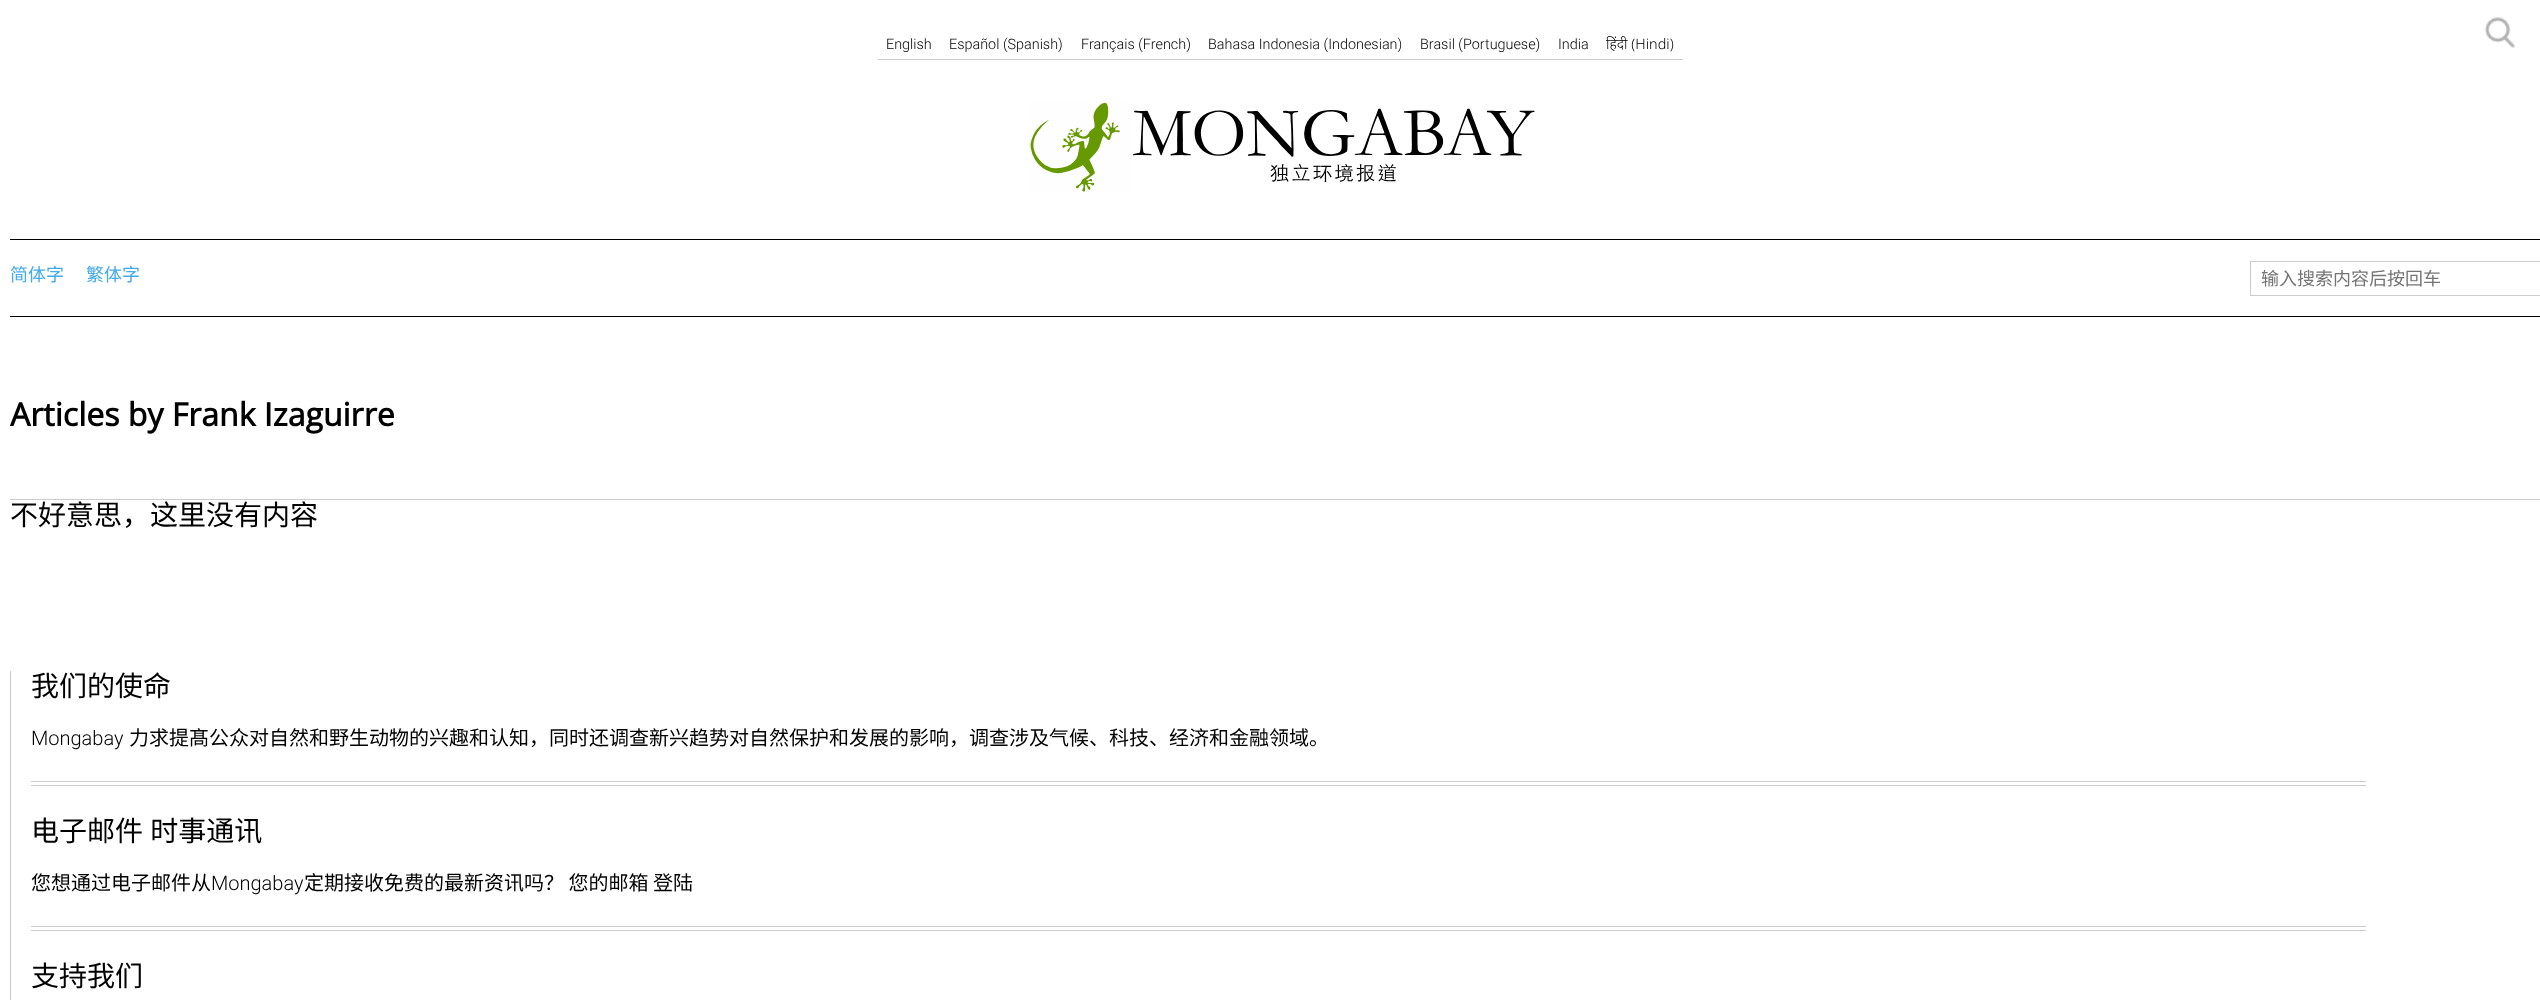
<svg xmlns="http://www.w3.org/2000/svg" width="2540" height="1000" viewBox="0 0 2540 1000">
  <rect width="100%" height="100%" fill="#ffffff"/>
  <text x="886" y="49" font-family="Roboto" font-size="14.4" font-weight="300" fill="#000000">English</text>
  <rect x="878" y="59" width="805" height="1" fill="#cccccc"/>
  <text x="949" y="49" font-family="Roboto" font-size="14.4" font-weight="300" fill="#000000">Español (Spanish)</text>
  <text x="1081" y="49" font-family="Roboto" font-size="14.4" font-weight="300" fill="#000000">Français (French)</text>
  <text x="1208" y="49" font-family="Roboto" font-size="14.4" font-weight="300" fill="#000000">Bahasa Indonesia (Indonesian)</text>
  <text x="1420" y="49" font-family="Roboto" font-size="14.4" font-weight="300" fill="#000000">Brasil (Portuguese)</text>
  <text x="1558" y="49" font-family="Roboto" font-size="14.4" font-weight="300" fill="#000000">India</text>
  <text x="1606" y="49" font-family="Noto Sans" font-size="14.4" font-weight="300" fill="#000000">हिंदी (Hindi)</text>
  <image x="1030" y="102" width="505" height="90" href="img1.png"/>
  <rect x="10" y="239" width="2530" height="1" fill="#000000"/>
  <rect x="10" y="316" width="2530" height="1" fill="#000000"/>
  <text x="10" y="281" font-family="Noto Sans CJK SC" font-size="18" fill="#45aae8">简体字</text>
  <text x="86" y="281" font-family="Noto Sans CJK SC" font-size="18" fill="#45aae8">繁体字</text>
  <image x="2485" y="17" width="30" height="31" href="img2.png"/>
  <rect x="2250.5" y="261.5" width="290" height="34" fill="none" stroke="#cccccc"/>
  <text x="2261" y="285" font-family="Noto Sans CJK SC" font-size="18" fill="#757575">输入搜索内容后按回车</text>
  <rect x="10" y="499" width="2530" height="1" fill="#cccccc"/>
  <text x="10" y="426" font-family="Open Sans" font-size="32" font-weight="bold" fill="#000000">Articles by Frank Izaguirre</text>
  <text x="10" y="525" font-family="Noto Sans CJK SC" font-size="28" fill="#000000">不好意思，这里没有内容</text>
  <rect x="10" y="671" width="1" height="329" fill="#cccccc"/>
  <rect x="31" y="781" width="2335" height="1" fill="#cccccc"/>
  <rect x="31" y="785" width="2335" height="1" fill="#cccccc"/>
  <text x="31" y="696" font-family="Noto Sans CJK SC" font-size="28" fill="#000000">我们的使命</text>
  <text x="31" y="745" font-family="Roboto" font-size="20" font-weight="300" fill="#000000">Mongabay</text>
  <text x="129" y="745" font-family="Noto Sans CJK SC" font-size="20" fill="#000000">力求提髙公众对自然和野生动物的兴趣和认知，同时还调查新兴趋势对自然保护和发展的影响，调查涉及气候、科技、经济和金融领域。</text>
  <rect x="31" y="926" width="2335" height="1" fill="#cccccc"/>
  <rect x="31" y="930" width="2335" height="1" fill="#cccccc"/>
  <text x="31" y="841" word-spacing="1" font-family="Noto Sans CJK SC" font-size="28" fill="#000000">电子邮件 时事通讯</text>
  <text x="31" y="890" font-family="Noto Sans CJK SC" font-size="20" fill="#000000">您想通过电子邮件从</text>
  <text x="211" y="890" font-family="Roboto" font-size="20" font-weight="300" fill="#000000">Mongabay</text>
  <text x="304" y="890" font-family="Noto Sans CJK SC" font-size="20" fill="#000000">定期接收免费的最新资讯吗？ 您的邮箱 登陆</text>
  <text x="31" y="986" font-family="Noto Sans CJK SC" font-size="28" fill="#000000">支持我们</text>
</svg>
